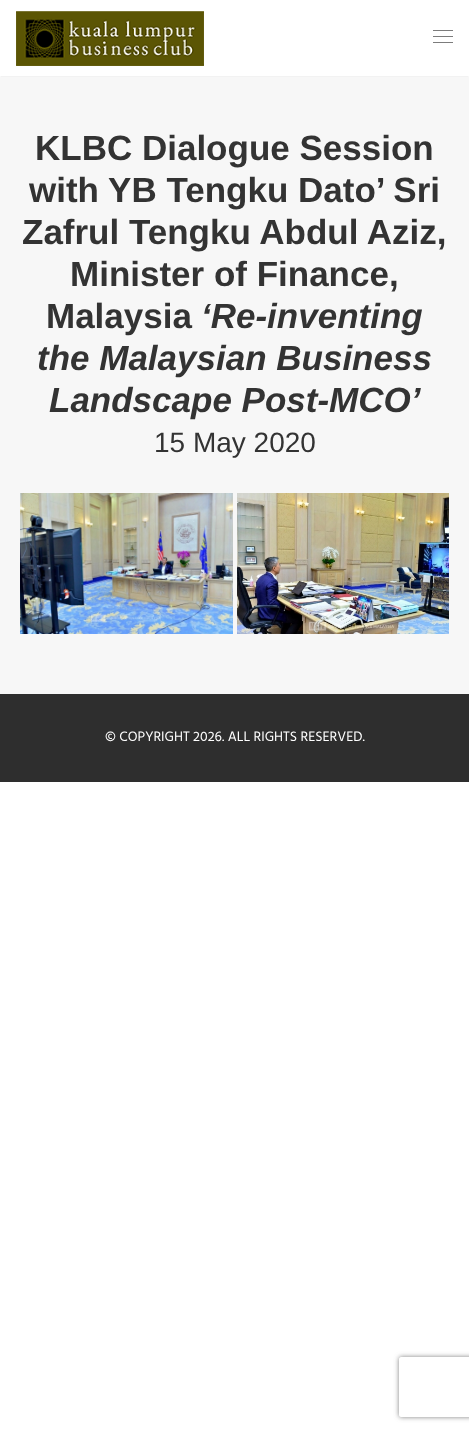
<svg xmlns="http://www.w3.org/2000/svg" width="469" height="1431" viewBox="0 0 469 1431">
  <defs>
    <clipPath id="clip1"><path d="M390 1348H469V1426H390ZM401 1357H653C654 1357 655 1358 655 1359V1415C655 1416 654 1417 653 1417H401C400 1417 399 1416 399 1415V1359C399 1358 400 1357 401 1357Z" clip-rule="evenodd"/></clipPath>
    <filter id="blur1" x="-50%" y="-200%" width="200%" height="500%"><feGaussianBlur stdDeviation="2.5"/></filter>
  </defs>
  <rect width="100%" height="100%" fill="#ffffff"/>
  <path d="M469 77H0L1 76H468Z" fill="#f2f2f2"/>
  <image x="16" y="11" width="188" height="55" href="img1.png"/>
  <rect x="433" y="36" width="20" height="1" fill="#7c7c7c"/>
  <rect x="433" y="30" width="20" height="1" fill="#7c7c7c"/>
  <rect x="433" y="42" width="20" height="1" fill="#7c7c7c"/>
  <rect x="0" y="77" width="469" height="617" fill="#f7f7f7"/>
  <text x="35" y="160" font-family="Liberation Sans" font-size="35" font-weight="bold" fill="#333333">KLBC Dialogue Session</text>
  <text x="29" y="202" font-family="Liberation Sans" font-size="35" font-weight="bold" fill="#333333">with YB Tengku Dato’ Sri</text>
  <text x="22" y="244" font-family="Liberation Sans" font-size="35" font-weight="bold" fill="#333333">Zafrul Tengku Abdul Aziz,</text>
  <text x="70" y="286" font-family="Liberation Sans" font-size="35" font-weight="bold" fill="#333333">Minister of Finance,</text>
  <text x="46" y="328" font-family="Liberation Sans" font-size="35" font-weight="bold" fill="#333333">Malaysia</text>
  <text x="201" y="328" font-family="Liberation Sans" font-size="35" font-weight="bold" font-style="italic" fill="#333333">‘Re-inventing</text>
  <text x="37" y="370" font-family="Liberation Sans" font-size="35" font-weight="bold" font-style="italic" fill="#333333">the Malaysian Business</text>
  <text x="49" y="412" font-family="Liberation Sans" font-size="35" font-weight="bold" font-style="italic" fill="#333333">Landscape Post-MCO’</text>
  <text x="154" y="452" font-family="Liberation Sans" font-size="28" fill="#333333">15 May 2020</text>
  <image x="20" y="493" width="213" height="141" href="img2.png"/>
  <image x="237" y="493" width="212" height="141" href="img3.png"/>
  <rect x="0" y="694" width="469" height="88" fill="#2e2e2e"/>
  <text x="105" y="741" font-family="Hind" font-size="14" fill="#ffffff">© COPYRIGHT 2026. ALL RIGHTS RESERVED.</text>
  <g clip-path="url(#clip1)">
    <rect x="399" y="1357" width="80" height="60" rx="2" fill="#808080" filter="url(#blur1)"/>
  </g>
</svg>
